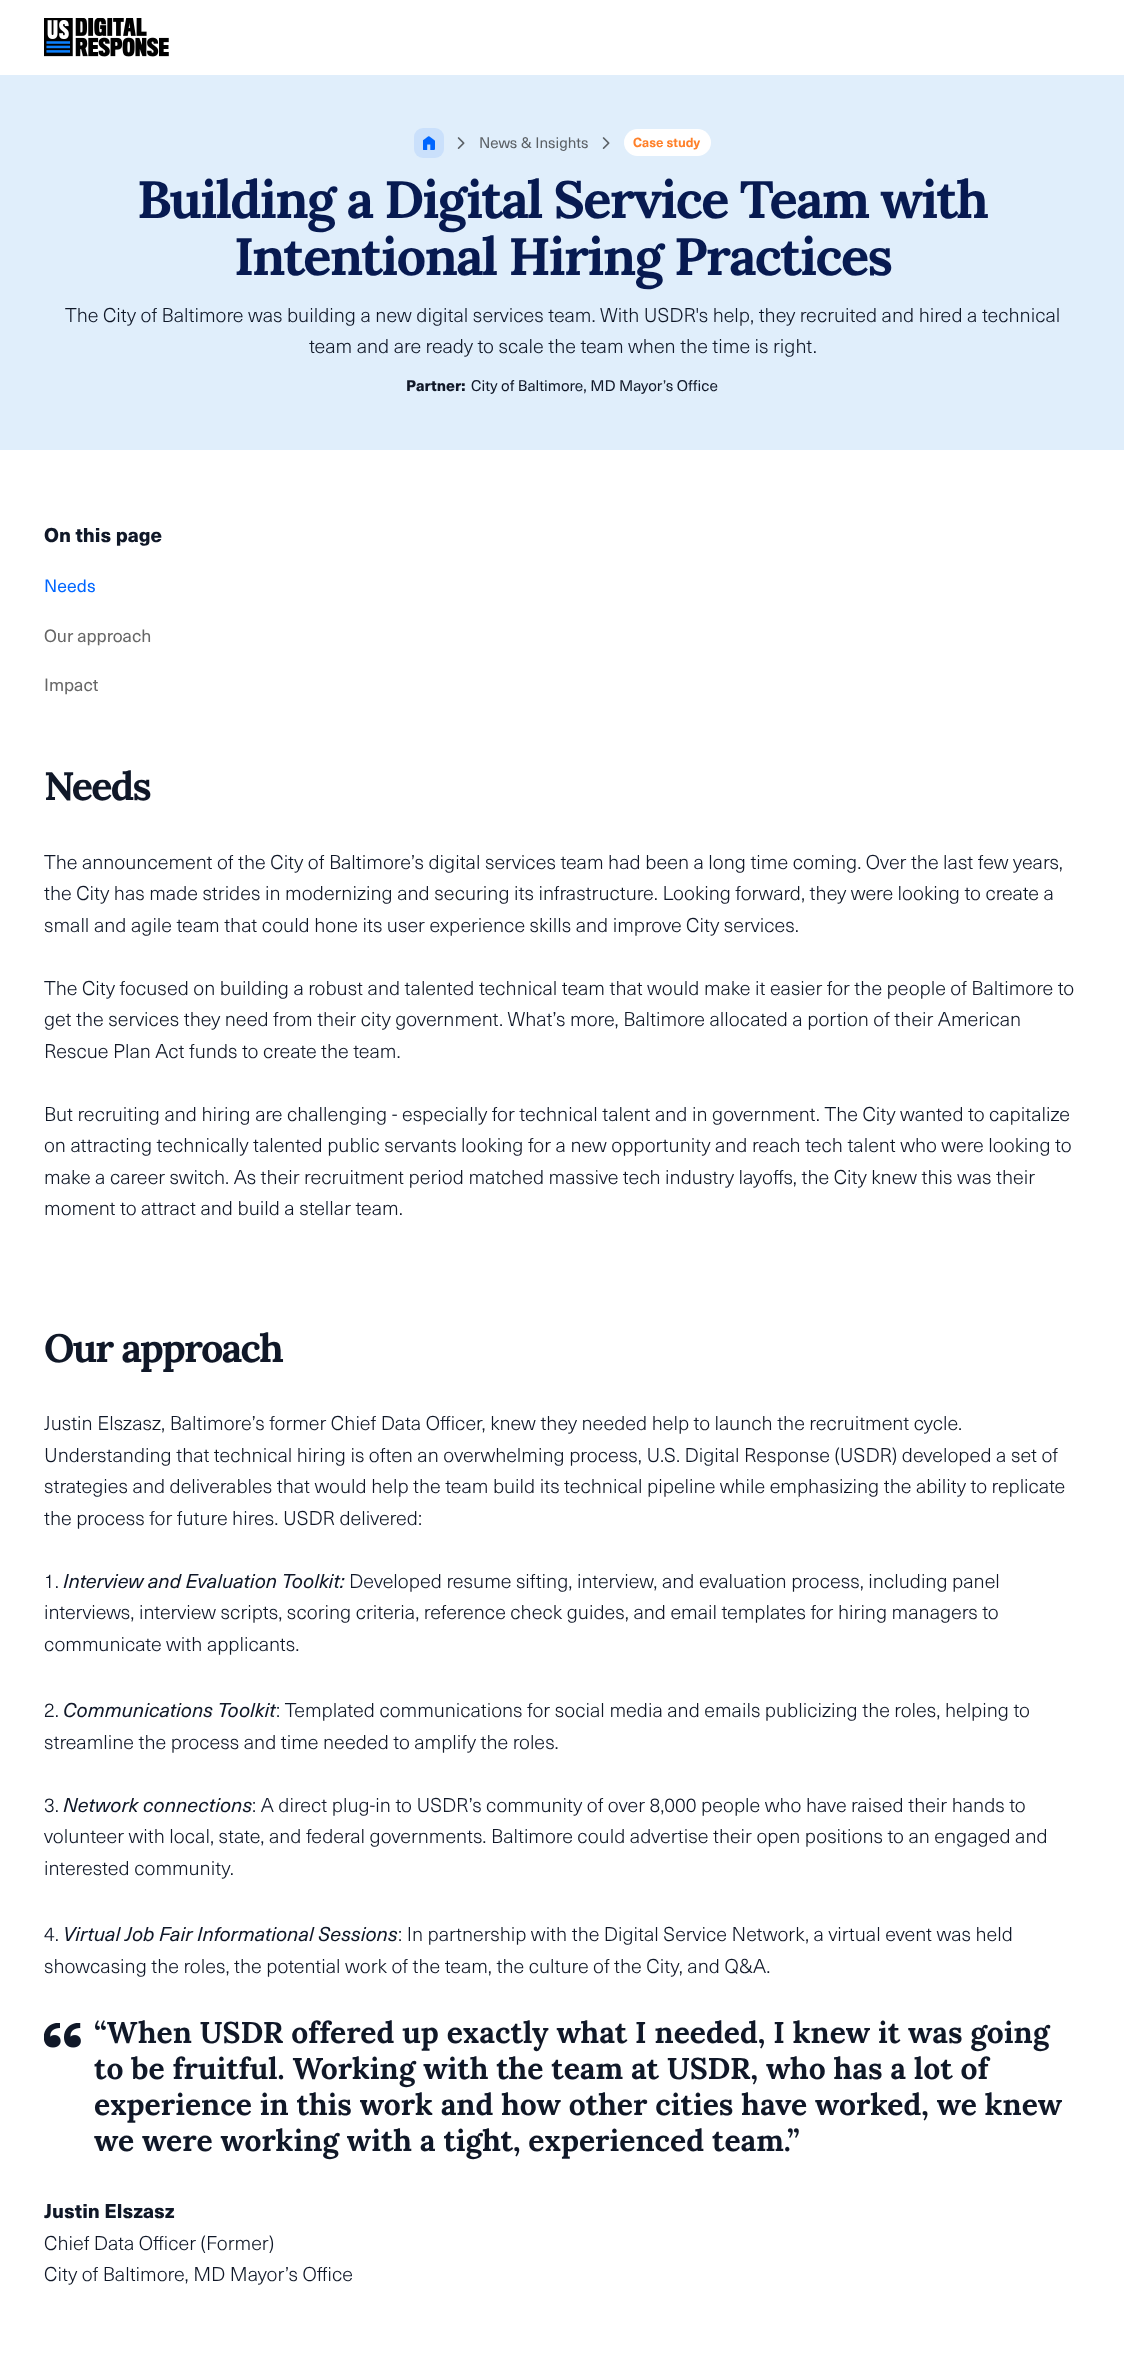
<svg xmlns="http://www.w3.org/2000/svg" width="1124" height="2368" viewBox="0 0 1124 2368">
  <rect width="100%" height="100%" fill="#ffffff"/>
  <image x="44" y="18" width="125" height="39" href="img1.png"/>
  <rect x="0" y="75" width="1124" height="375" fill="#e0eefb"/>
  <rect x="414" y="128" width="30" height="30" rx="9" fill="#cae0fb"/>
  <image x="423" y="136" width="12" height="14" href="img2.png"/>
  <image x="457" y="137" width="8" height="12" href="img3.png"/>
  <text x="479" y="148" font-family="'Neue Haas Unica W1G'" font-size="15" fill="#5a5f64">News &amp; Insights</text>
  <image x="602" y="137" width="8" height="12" href="img3.png"/>
  <rect x="624" y="129" width="87" height="27" rx="13.5" fill="#ffffff"/>
  <text x="633" y="147" font-family="'Neue Haas Unica W1G'" font-size="13" font-weight="bold" fill="#ff8029">Case study</text>
  <text x="137" y="218" font-family="Lora" font-size="52.5" font-weight="bold" letter-spacing="-1.75" fill="#071a51">Building a Digital Service Team with</text>
  <text x="234" y="275" font-family="Lora" font-size="52.5" font-weight="bold" letter-spacing="-1.75" fill="#071a51">Intentional Hiring Practices</text>
  <text x="65" y="322" font-family="'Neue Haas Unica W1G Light'" font-size="19.7" font-weight="300" fill="#101828">The City of Baltimore was building a new digital services team. With USDR's help, they recruited and hired a technical</text>
  <text x="309" y="353" font-family="'Neue Haas Unica W1G Light'" font-size="19.7" font-weight="300" fill="#101828">team and are ready to scale the team when the time is right.</text>
  <text x="406" y="391" font-family="'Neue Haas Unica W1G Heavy'" font-size="15.25" font-weight="900" fill="#101828">Partner:</text>
  <text x="471" y="391" font-family="'Neue Haas Unica W1G'" font-size="15.25" fill="#101828">City of Baltimore, MD Mayor’s Office</text>
  <text x="44" y="542" font-family="'Neue Haas Unica W1G Heavy'" font-size="19.7" font-weight="900" fill="#101828">On this page</text>
  <text x="44" y="592" font-family="'Neue Haas Unica W1G'" font-size="17.5" fill="#0066ff">Needs</text>
  <text x="44" y="642" font-family="'Neue Haas Unica W1G'" font-size="17.5" fill="#666666">Our approach</text>
  <text x="44" y="691" font-family="'Neue Haas Unica W1G'" font-size="17.5" fill="#666666">Impact</text>
  <text x="44" y="800" font-family="Lora" font-size="39.5" font-weight="bold" letter-spacing="-1.75" fill="#101828">Needs</text>
  <text x="44" y="869" font-family="'Neue Haas Unica W1G Light'" font-size="19.7" font-weight="300" fill="#101828">The announcement of the City of Baltimore’s digital services team had been a long time coming. Over the last few years,</text>
  <text x="44" y="900" font-family="'Neue Haas Unica W1G Light'" font-size="19.7" font-weight="300" fill="#101828">the City has made strides in modernizing and securing its infrastructure. Looking forward, they were looking to create a</text>
  <text x="44" y="932" font-family="'Neue Haas Unica W1G Light'" font-size="19.7" font-weight="300" fill="#101828">small and agile team that could hone its user experience skills and improve City services.</text>
  <text x="44" y="995" font-family="'Neue Haas Unica W1G Light'" font-size="19.7" font-weight="300" fill="#101828">The City focused on building a robust and talented technical team that would make it easier for the people of Baltimore to</text>
  <text x="44" y="1026" font-family="'Neue Haas Unica W1G Light'" font-size="19.7" font-weight="300" fill="#101828">get the services they need from their city government. What’s more, Baltimore allocated a portion of their American</text>
  <text x="44" y="1058" font-family="'Neue Haas Unica W1G Light'" font-size="19.7" font-weight="300" fill="#101828">Rescue Plan Act funds to create the team.</text>
  <text x="44" y="1121" font-family="'Neue Haas Unica W1G Light'" font-size="19.7" font-weight="300" fill="#101828">But recruiting and hiring are challenging - especially for technical talent and in government. The City wanted to capitalize</text>
  <text x="44" y="1152" font-family="'Neue Haas Unica W1G Light'" font-size="19.7" font-weight="300" fill="#101828">on attracting technically talented public servants looking for a new opportunity and reach tech talent who were looking to</text>
  <text x="44" y="1184" font-family="'Neue Haas Unica W1G Light'" font-size="19.7" font-weight="300" fill="#101828">make a career switch. As their recruitment period matched massive tech industry layoffs, the City knew this was their</text>
  <text x="44" y="1215" font-family="'Neue Haas Unica W1G Light'" font-size="19.7" font-weight="300" fill="#101828">moment to attract and build a stellar team.</text>
  <text x="44" y="1362" font-family="Lora" font-size="39.5" font-weight="bold" letter-spacing="-1.75" fill="#101828">Our approach</text>
  <text x="44" y="1430" font-family="'Neue Haas Unica W1G Light'" font-size="19.7" font-weight="300" fill="#101828">Justin Elszasz, Baltimore’s former Chief Data Officer, knew they needed help to launch the recruitment cycle.</text>
  <text x="44" y="1462" font-family="'Neue Haas Unica W1G Light'" font-size="19.7" font-weight="300" fill="#101828">Understanding that technical hiring is often an overwhelming process, U.S. Digital Response (USDR) developed a set of</text>
  <text x="44" y="1493" font-family="'Neue Haas Unica W1G Light'" font-size="19.7" font-weight="300" fill="#101828">strategies and deliverables that would help the team build its technical pipeline while emphasizing the ability to replicate</text>
  <text x="44" y="1525" font-family="'Neue Haas Unica W1G Light'" font-size="19.7" font-weight="300" fill="#101828">the process for future hires. USDR delivered:</text>
  <text x="44" y="1588" font-family="'Neue Haas Unica W1G Light'" font-size="19.7" font-weight="300" fill="#101828">1.</text>
  <text x="63" y="1588" font-family="'Neue Haas Unica W1G'" font-size="19.7" font-style="italic" fill="#101828">Interview and Evaluation Toolkit:</text>
  <text x="349" y="1588" font-family="'Neue Haas Unica W1G Light'" font-size="19.7" font-weight="300" fill="#101828">Developed resume sifting, interview, and evaluation process, including panel</text>
  <text x="44" y="1619" font-family="'Neue Haas Unica W1G Light'" font-size="19.7" font-weight="300" fill="#101828">interviews, interview scripts, scoring criteria, reference check guides, and email templates for hiring managers to</text>
  <text x="44" y="1651" font-family="'Neue Haas Unica W1G Light'" font-size="19.7" font-weight="300" fill="#101828">communicate with applicants.</text>
  <text x="44" y="1717" font-family="'Neue Haas Unica W1G Light'" font-size="19.7" font-weight="300" fill="#101828">2.</text>
  <text x="63" y="1717" font-family="'Neue Haas Unica W1G'" font-size="19.7" font-style="italic" fill="#101828">Communications Toolkit</text>
  <text x="276" y="1717" font-family="'Neue Haas Unica W1G Light'" font-size="19.7" font-weight="300" fill="#101828">: Templated communications for social media and emails publicizing the roles, helping to</text>
  <text x="44" y="1749" font-family="'Neue Haas Unica W1G Light'" font-size="19.7" font-weight="300" fill="#101828">streamline the process and time needed to amplify the roles.</text>
  <text x="44" y="1812" font-family="'Neue Haas Unica W1G Light'" font-size="19.7" font-weight="300" fill="#101828">3.</text>
  <text x="63" y="1812" font-family="'Neue Haas Unica W1G'" font-size="19.7" font-style="italic" fill="#101828">Network connections</text>
  <text x="252" y="1812" font-family="'Neue Haas Unica W1G Light'" font-size="19.7" font-weight="300" fill="#101828">: A direct plug-in to USDR’s community of over 8,000 people who have raised their hands to</text>
  <text x="44" y="1843" font-family="'Neue Haas Unica W1G Light'" font-size="19.7" font-weight="300" fill="#101828">volunteer with local, state, and federal governments. Baltimore could advertise their open positions to an engaged and</text>
  <text x="44" y="1875" font-family="'Neue Haas Unica W1G Light'" font-size="19.7" font-weight="300" fill="#101828">interested community.</text>
  <text x="44" y="1941" font-family="'Neue Haas Unica W1G Light'" font-size="19.7" font-weight="300" fill="#101828">4.</text>
  <text x="63" y="1941" font-family="'Neue Haas Unica W1G'" font-size="19.7" font-style="italic" fill="#101828">Virtual Job Fair Informational Sessions</text>
  <text x="398" y="1941" font-family="'Neue Haas Unica W1G Light'" font-size="19.7" font-weight="300" fill="#101828">: In partnership with the Digital Service Network, a virtual event was held</text>
  <text x="44" y="1973" font-family="'Neue Haas Unica W1G Light'" font-size="19.7" font-weight="300" fill="#101828">showcasing the roles, the potential work of the team, the culture of the City, and Q&amp;A.</text>
  <image x="44" y="2023" width="37" height="25" href="img4.png"/>
  <text x="94" y="2043" font-family="Lora" font-size="30" font-weight="bold" fill="#101828">“When USDR offered up exactly what I needed, I knew it was going</text>
  <text x="94" y="2079" font-family="Lora" font-size="30" font-weight="bold" fill="#101828">to be fruitful. Working with the team at USDR, who has a lot of</text>
  <text x="94" y="2115" font-family="Lora" font-size="30" font-weight="bold" fill="#101828">experience in this work and how other cities have worked, we knew</text>
  <text x="94" y="2151" font-family="Lora" font-size="30" font-weight="bold" fill="#101828">we were working with a tight, experienced team.”</text>
  <text x="44" y="2218" font-family="'Neue Haas Unica W1G Heavy'" font-size="19.7" font-weight="900" fill="#101828">Justin Elszasz</text>
  <text x="44" y="2250" font-family="'Neue Haas Unica W1G Light'" font-size="19.7" font-weight="300" fill="#101828">Chief Data Officer (Former)</text>
  <text x="44" y="2281" font-family="'Neue Haas Unica W1G Light'" font-size="19.7" font-weight="300" fill="#101828">City of Baltimore, MD Mayor’s Office</text>
</svg>
